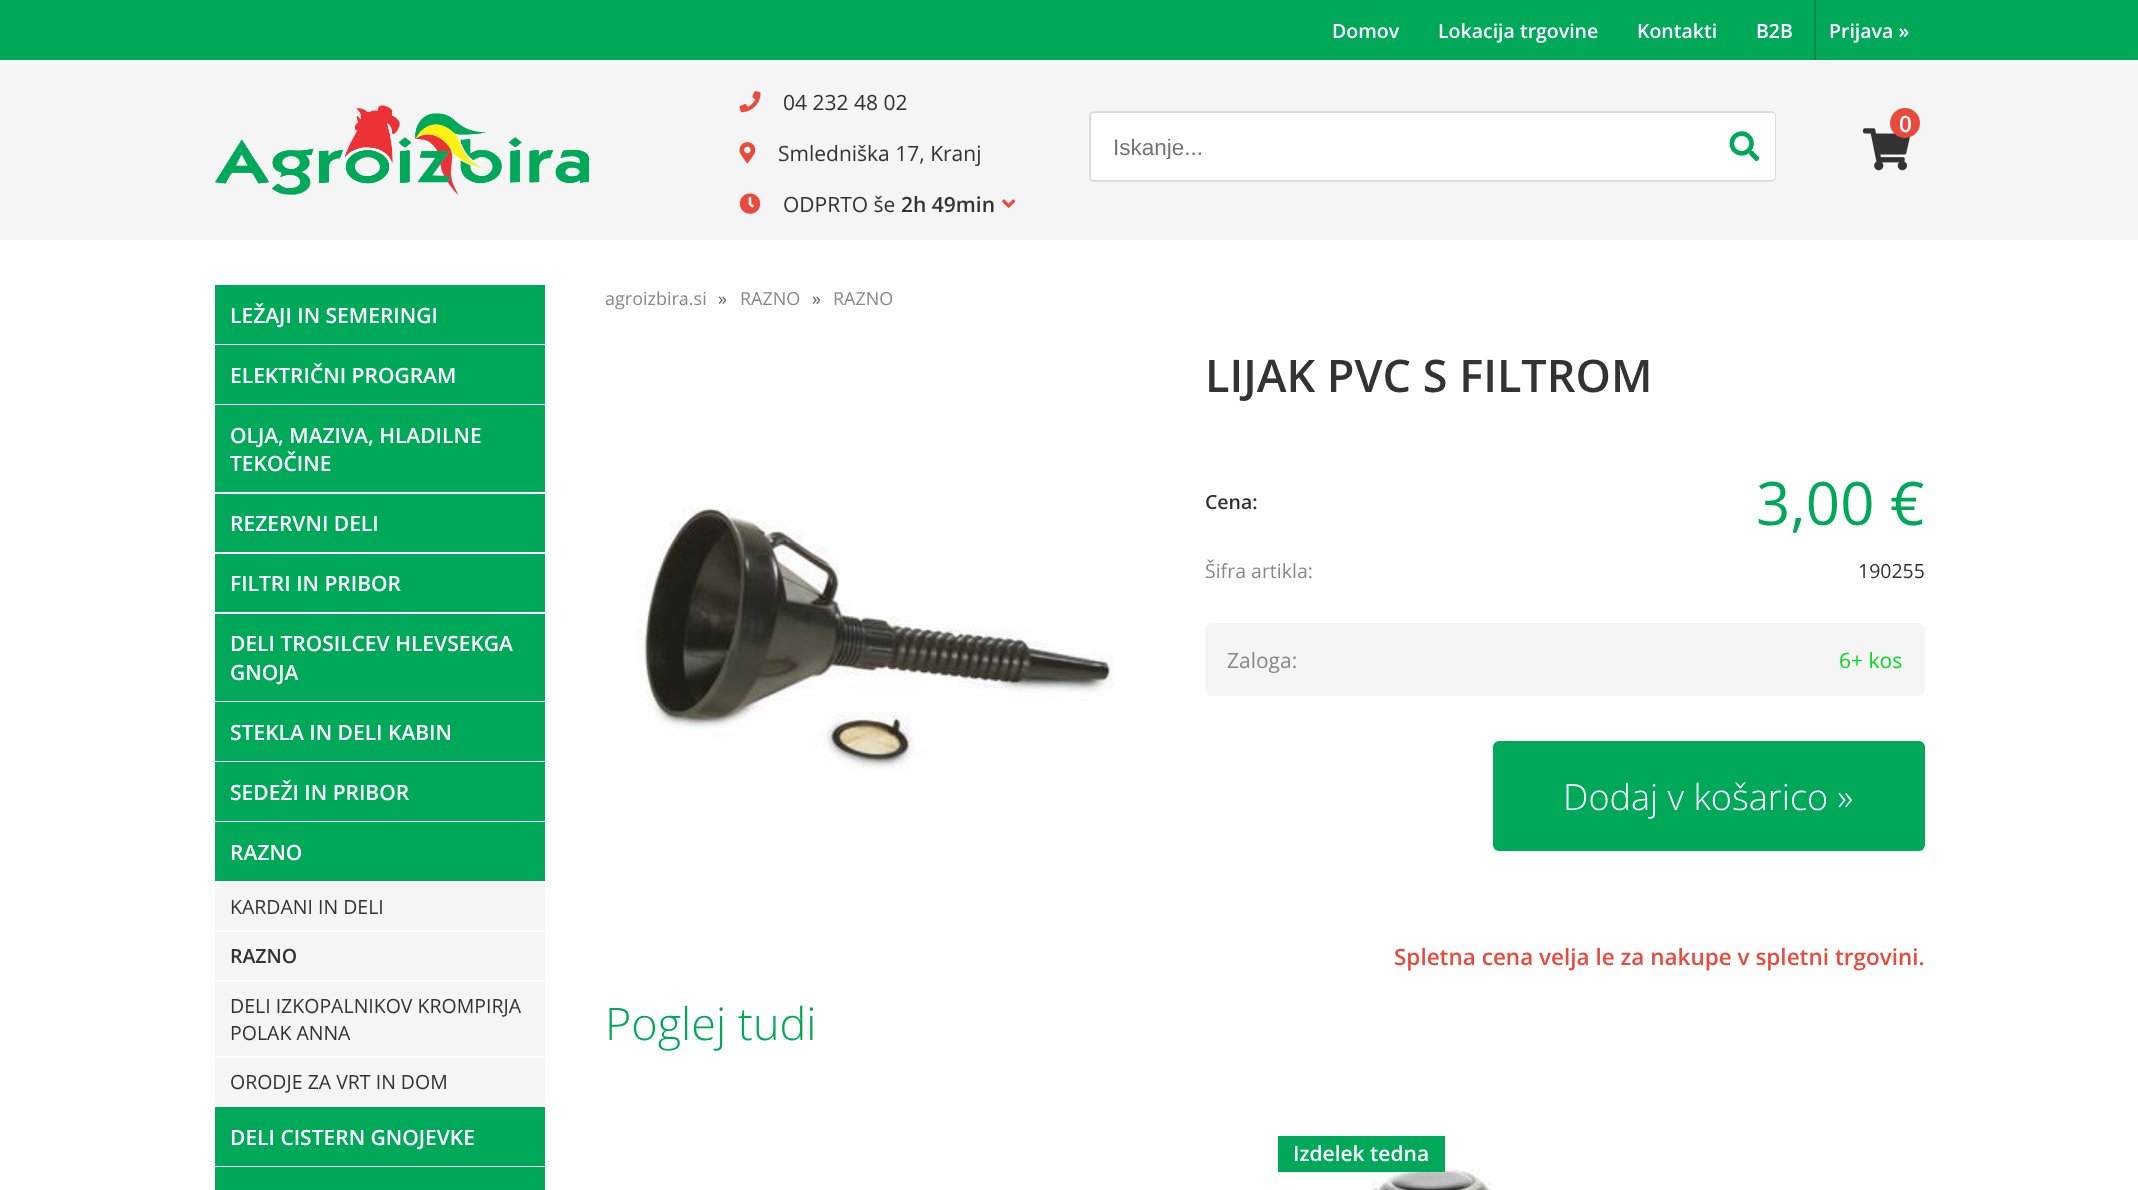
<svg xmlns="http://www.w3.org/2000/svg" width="2138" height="1190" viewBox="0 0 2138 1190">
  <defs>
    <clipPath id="clip1"><rect x="1113" y="134" width="587" height="25"/></clipPath>
  </defs>
  <rect width="100%" height="100%" fill="#ffffff"/>
  <rect x="0" y="60" width="2138" height="180" fill="#f5f5f5"/>
  <rect x="0" y="0" width="2138" height="60" fill="#00a859"/>
  <text x="1332" y="38" font-family="Open Sans" font-size="19.5" font-weight="600" fill="#ffffff">Domov</text>
  <text x="1438" y="38" font-family="Open Sans" font-size="19.5" font-weight="600" fill="#ffffff">Lokacija trgovine</text>
  <text x="1637" y="38" font-family="Open Sans" font-size="19.5" font-weight="600" fill="#ffffff">Kontakti</text>
  <text x="1756" y="38" font-family="Open Sans" font-size="19.5" font-weight="600" fill="#ffffff">B2B</text>
  <rect x="1814" y="0" width="2" height="60" fill="#008647"/>
  <text x="1829" y="38" font-family="Open Sans" font-size="19.5" font-weight="600" fill="#ffffff">Prijava »</text>
  <image x="215" y="105" width="375" height="90" href="img1.png"/>
  <image x="739" y="91" width="22" height="22" href="img2.png"/>
  <text x="783" y="110" font-family="Open Sans" font-size="21" fill="#333333">04 232 48 02</text>
  <image x="739" y="142" width="17" height="22" href="img3.png"/>
  <text x="778" y="161" font-family="Open Sans" font-size="21" fill="#333333">Smledniška 17, Kranj</text>
  <image x="739" y="193" width="22" height="21" href="img4.png"/>
  <text x="783" y="212" font-family="Open Sans" font-size="21" fill="#333333">ODPRTO še</text>
  <text x="901" y="212" font-family="Open Sans" font-size="21" font-weight="600" fill="#333333">2h 49min</text>
  <image x="1002" y="199" width="14" height="9" href="img5.png"/>
  <image x="1863" y="128" width="48" height="43" href="img6.png"/>
  <circle cx="1905" cy="123" r="15" fill="#ea4a3c"/>
  <text x="1899" y="132" font-family="Open Sans" font-size="22.5" font-weight="600" fill="#ffffff">0</text>
  <rect x="1090" y="112" width="685" height="69" rx="4" fill="none" stroke="#dddddd" stroke-width="2"/>
  <rect x="1091" y="113" width="684" height="67" rx="3" fill="#ffffff"/>
  <g clip-path="url(#clip1)">
    <text x="1113" y="155" font-family="Liberation Sans" font-size="22.5" fill="#757575">Iskanje...</text>
  </g>
  <image x="1729" y="131" width="31" height="31" href="img7.png"/>
  <rect x="215" y="285" width="330" height="59" fill="#00a859"/>
  <text x="230" y="323" font-family="Open Sans" font-size="21" font-weight="600" fill="#ffffff">LEŽAJI IN SEMERINGI</text>
  <rect x="215" y="345" width="330" height="59" fill="#00a859"/>
  <text x="230" y="383" font-family="Open Sans" font-size="21" font-weight="600" fill="#ffffff">ELEKTRIČNI PROGRAM</text>
  <rect x="215" y="405" width="330" height="87" fill="#00a859"/>
  <text x="230" y="443" font-family="Open Sans" font-size="21" font-weight="600" fill="#ffffff">OLJA, MAZIVA, HLADILNE</text>
  <text x="230" y="471" font-family="Open Sans" font-size="21" font-weight="600" fill="#ffffff">TEKOČINE</text>
  <rect x="215" y="494" width="330" height="58" fill="#00a859"/>
  <text x="230" y="531" font-family="Open Sans" font-size="21" font-weight="600" fill="#ffffff">REZERVNI DELI</text>
  <rect x="215" y="554" width="330" height="58" fill="#00a859"/>
  <text x="230" y="591" font-family="Open Sans" font-size="21" font-weight="600" fill="#ffffff">FILTRI IN PRIBOR</text>
  <rect x="215" y="614" width="330" height="87" fill="#00a859"/>
  <text x="230" y="651" font-family="Open Sans" font-size="21" font-weight="600" fill="#ffffff">DELI TROSILCEV HLEVSEKGA</text>
  <text x="230" y="680" font-family="Open Sans" font-size="21" font-weight="600" fill="#ffffff">GNOJA</text>
  <rect x="215" y="702" width="330" height="59" fill="#00a859"/>
  <text x="230" y="740" font-family="Open Sans" font-size="21" font-weight="600" fill="#ffffff">STEKLA IN DELI KABIN</text>
  <rect x="215" y="762" width="330" height="59" fill="#00a859"/>
  <text x="230" y="800" font-family="Open Sans" font-size="21" font-weight="600" fill="#ffffff">SEDEŽI IN PRIBOR</text>
  <rect x="215" y="822" width="330" height="59" fill="#00a859"/>
  <text x="230" y="860" font-family="Open Sans" font-size="21" font-weight="600" fill="#ffffff">RAZNO</text>
  <rect x="215" y="883" width="330" height="223" fill="#f5f5f5"/>
  <text x="230" y="914" font-family="Open Sans" font-size="19.5" fill="#333333">KARDANI IN DELI</text>
  <rect x="215" y="930" width="330" height="2" fill="#ffffff"/>
  <text x="230" y="963" font-family="Open Sans" font-size="19.5" font-weight="600" fill="#333333">RAZNO</text>
  <rect x="215" y="980" width="330" height="2" fill="#ffffff"/>
  <text x="230" y="1013" font-family="Open Sans" font-size="19.5" fill="#333333">DELI IZKOPALNIKOV KROMPIRJA</text>
  <text x="230" y="1040" font-family="Open Sans" font-size="19.5" fill="#333333">POLAK ANNA</text>
  <rect x="215" y="1056" width="330" height="2" fill="#ffffff"/>
  <text x="230" y="1089" font-family="Open Sans" font-size="19.5" fill="#333333">ORODJE ZA VRT IN DOM</text>
  <rect x="215" y="1107" width="330" height="59" fill="#00a859"/>
  <text x="230" y="1145" font-family="Open Sans" font-size="21" font-weight="600" fill="#ffffff">DELI CISTERN GNOJEVKE</text>
  <rect x="215" y="1167" width="330" height="23" fill="#00a859"/>
  <text x="605" y="305" font-family="Open Sans" font-size="18" fill="#888888">agroizbira.si</text>
  <text x="718" y="305" font-family="Open Sans" font-size="18" fill="#606060">»</text>
  <text x="740" y="305" font-family="Open Sans" font-size="18" fill="#888888">RAZNO</text>
  <text x="812" y="305" font-family="Open Sans" font-size="18" fill="#606060">»</text>
  <text x="833" y="305" font-family="Open Sans" font-size="18" fill="#888888">RAZNO</text>
  <text x="1205" y="392" font-family="Open Sans" font-size="45" font-weight="600" fill="#333333">LIJAK PVC S FILTROM</text>
  <image x="635" y="505" width="479" height="266" href="img8.png"/>
  <text x="1205" y="509" font-family="Open Sans" font-size="19.5" font-weight="600" fill="#333333">Cena:</text>
  <text x="1756" y="525" font-family="Open Sans" font-size="60" fill="#00a859">3,00 €</text>
  <text x="1205" y="578" font-family="Open Sans" font-size="19.5" fill="#888888">Šifra artikla:</text>
  <text x="1858" y="578" font-family="Open Sans" font-size="19.5" fill="#333333">190255</text>
  <rect x="1205" y="623" width="720" height="73" rx="8" fill="#f5f5f5"/>
  <text x="1227" y="668" font-family="Open Sans" font-size="21" fill="#888888">Zaloga:</text>
  <text x="1839" y="668" font-family="Open Sans" font-size="21" fill="#00db1d">6+ kos</text>
  <rect x="1493" y="741" width="432" height="110" rx="6" fill="#00a859"/>
  <text x="1563" y="810" font-family="Open Sans" font-size="36" font-weight="300" fill="#ffffff">Dodaj v košarico »</text>
  <text x="1394" y="965" font-family="Open Sans" font-size="22.5" font-weight="600" fill="#ea4a3c">Spletna cena velja le za nakupe v spletni trgovini.</text>
  <text x="605" y="1040" font-family="Open Sans" font-size="45" font-weight="300" fill="#00a859">Poglej tudi</text>
  <image x="1372" y="1168" width="121" height="22" href="img9.png"/>
  <rect x="1278" y="1136" width="167" height="36" fill="#00a859"/>
  <text x="1293" y="1161" font-family="Open Sans" font-size="21" font-weight="600" fill="#ffffff">Izdelek tedna</text>
</svg>
